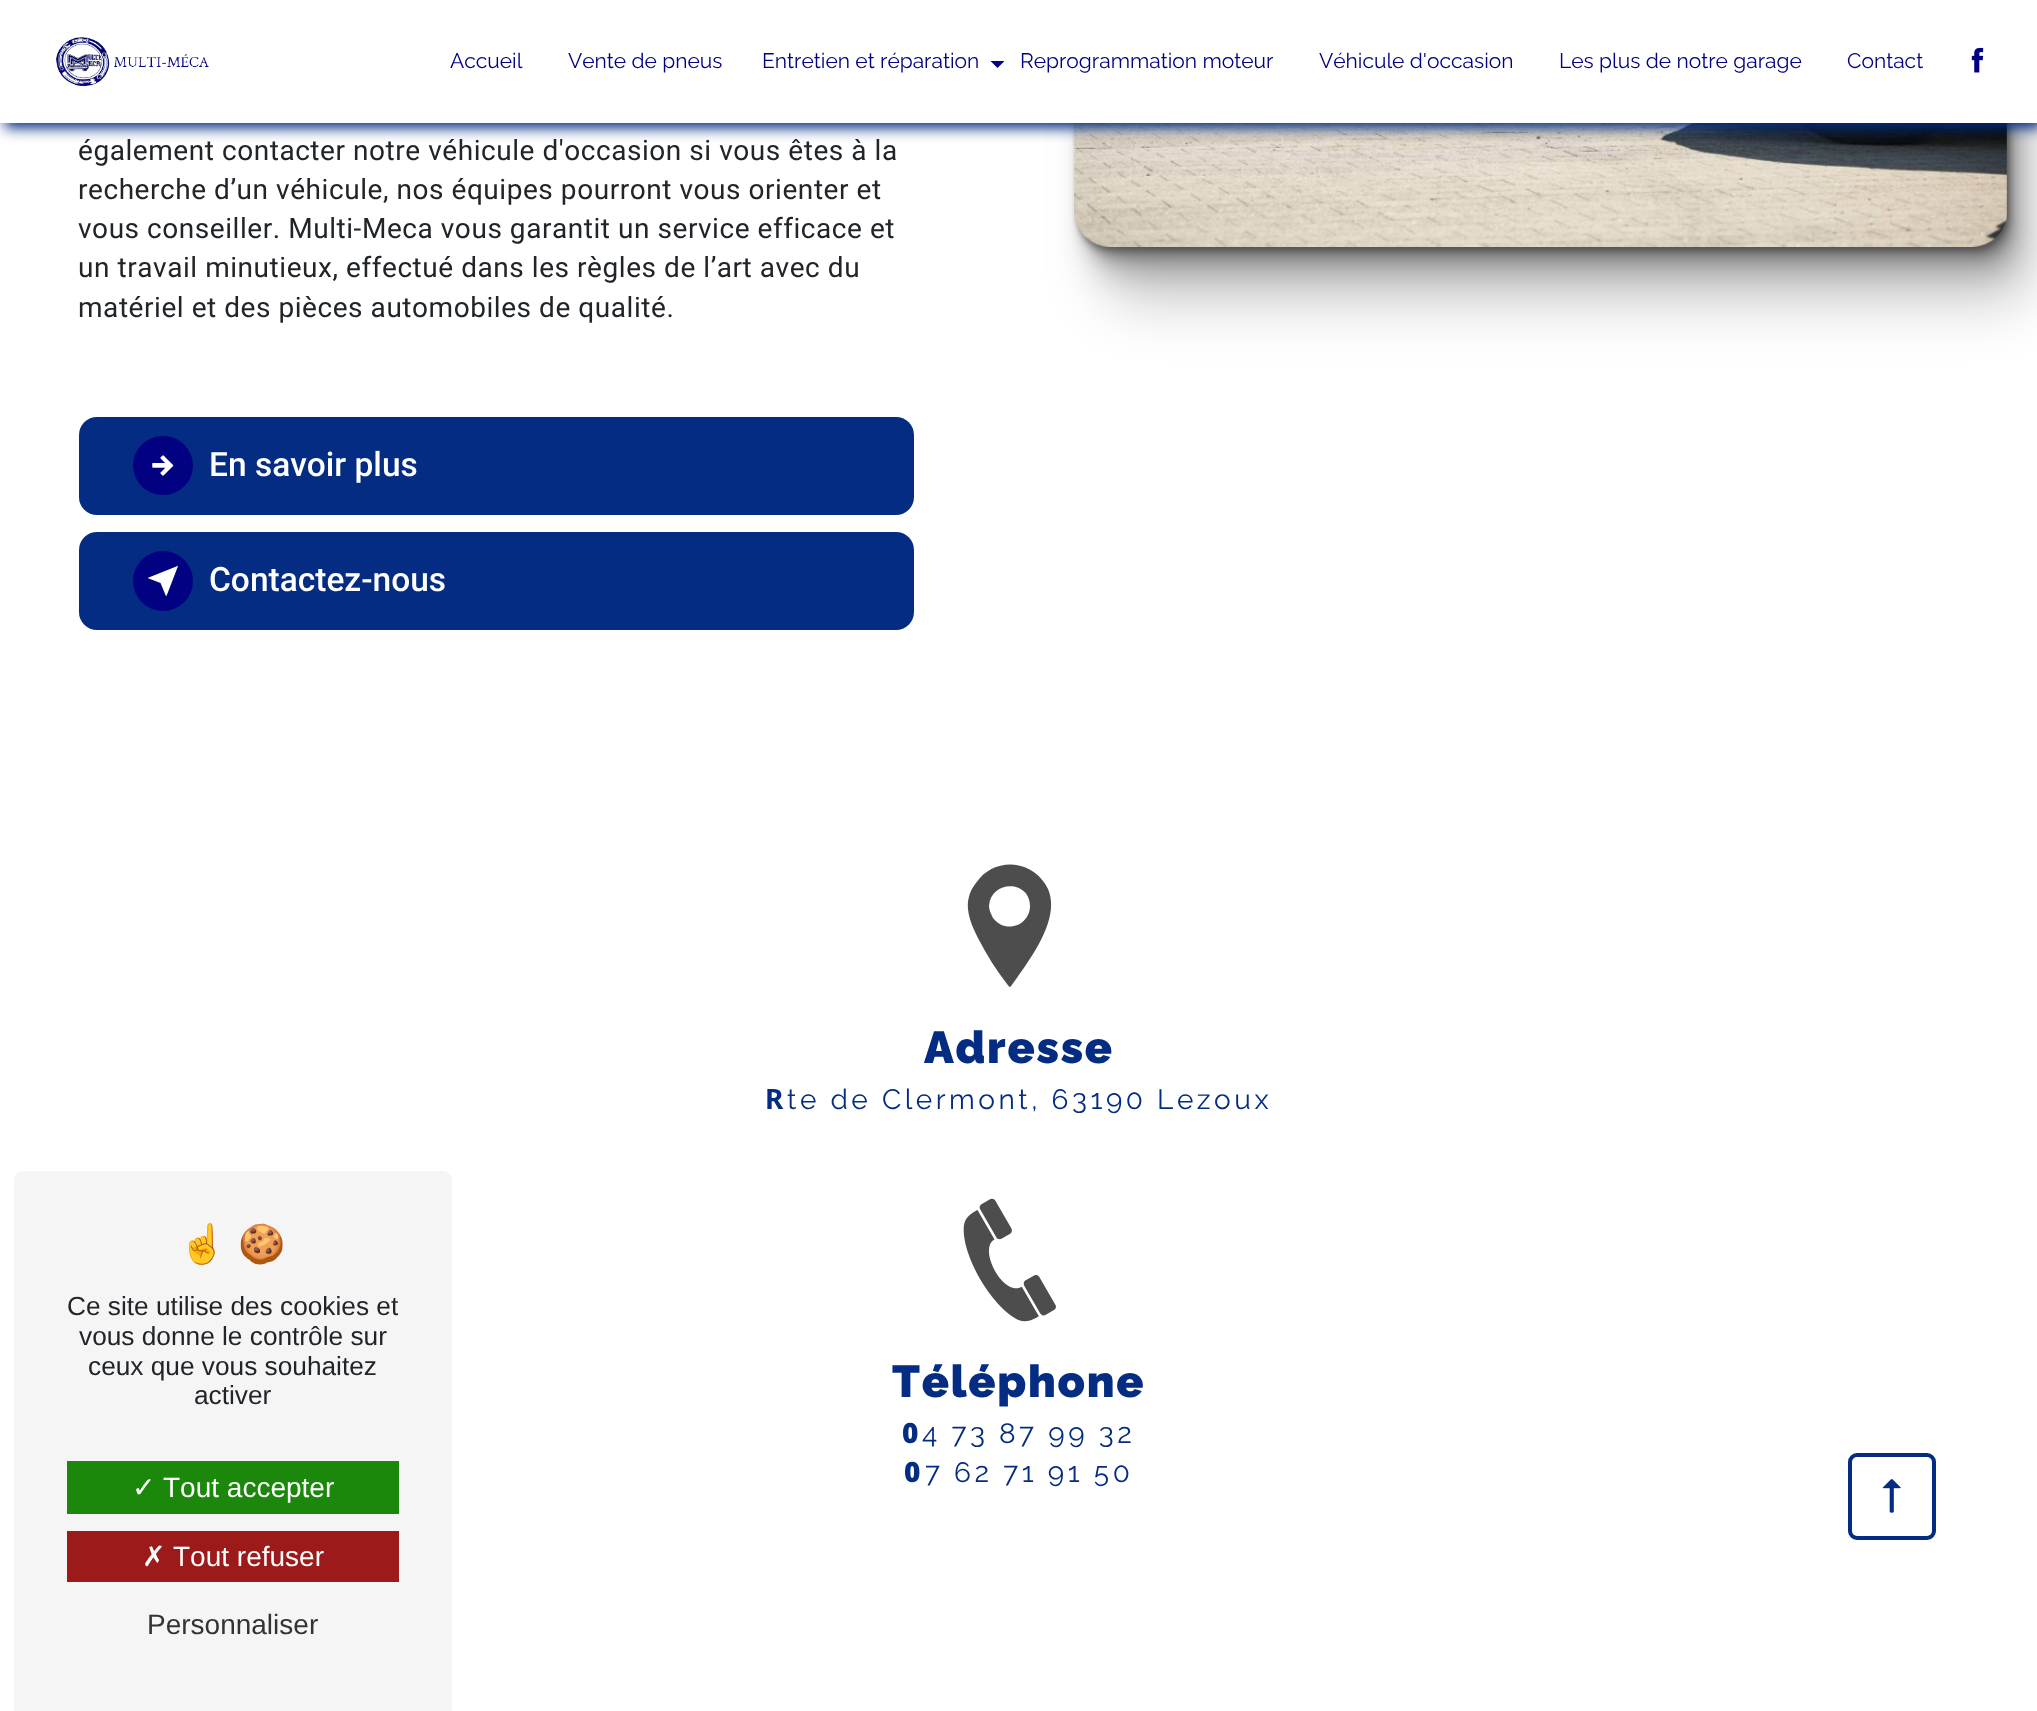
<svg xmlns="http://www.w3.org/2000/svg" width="2037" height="1711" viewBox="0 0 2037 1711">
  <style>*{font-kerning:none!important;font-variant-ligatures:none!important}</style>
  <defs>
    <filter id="blur1" x="-50%" y="-200%" width="200%" height="500%"><feGaussianBlur stdDeviation="28"/></filter>
    <filter id="blur2" x="-50%" y="-200%" width="200%" height="500%"><feGaussianBlur stdDeviation="14"/></filter>
    <filter id="blur3" x="-50%" y="-200%" width="200%" height="500%"><feGaussianBlur stdDeviation="7"/></filter>
    <filter id="blur4" x="-50%" y="-200%" width="200%" height="500%"><feGaussianBlur stdDeviation="3.5"/></filter>
    <filter id="blur5" x="-50%" y="-200%" width="200%" height="500%"><feGaussianBlur stdDeviation="2"/></filter>
  </defs>
  <rect width="100%" height="100%" fill="#ffffff"/>
  <rect x="1103" y="-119" width="932" height="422" rx="35" fill="#000000" fill-opacity="0.2" filter="url(#blur1)"/>
  <rect x="1089" y="-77" width="932" height="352" rx="35" fill="#000000" fill-opacity="0.2" filter="url(#blur2)"/>
  <rect x="1082" y="-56" width="932" height="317" rx="35" fill="#000000" fill-opacity="0.2" filter="url(#blur3)"/>
  <rect x="1078" y="-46" width="933" height="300" rx="35" fill="#000000" fill-opacity="0.2" filter="url(#blur4)"/>
  <rect x="1076" y="-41" width="933" height="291" rx="35" fill="#000000" fill-opacity="0.2" filter="url(#blur5)"/>
  <image x="1074" y="123" width="933" height="124" href="img4.png"/>
  <rect x="5" y="5" width="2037" height="123" fill="#042c82" filter="url(#blur3)"/>
  <rect x="0" y="0" width="2037" height="123" fill="#ffffff"/>
  <image x="56" y="37" width="153" height="50" href="img1.png"/>
  <text x="450" y="68" font-family="Raleway" font-size="21" fill="#020181">Accueil</text>
  <text x="568" y="68" font-family="Raleway" font-size="21" fill="#020181">Vente de pneus</text>
  <text x="762" y="68" font-family="Raleway" font-size="21" fill="#020181">Entretien et réparation</text>
  <path d="M990.5 61H1004.5L997.5 68Z" fill="#020181"/>
  <text x="1020" y="68" font-family="Raleway" font-size="21" fill="#020181">Reprogrammation moteur</text>
  <text x="1319" y="68" font-family="Raleway" font-size="21" fill="#020181">Véhicule d'occasion</text>
  <text x="1559" y="68" font-family="Raleway" font-size="21" fill="#020181">Les plus de notre garage</text>
  <text x="1847" y="68" font-family="Raleway" font-size="21" fill="#020181">Contact</text>
  <image x="1971" y="47" width="13" height="26" href="img2.png"/>
  <text x="78" y="160" font-family="Roboto" font-size="28" letter-spacing="0.55" fill="#212529">également contacter notre véhicule d'occasion si vous êtes à la</text>
  <text x="78" y="199" font-family="Roboto" font-size="28" letter-spacing="0.55" fill="#212529">recherche d’un véhicule, nos équipes pourront vous orienter et</text>
  <text x="78" y="238" font-family="Roboto" font-size="28" letter-spacing="0.55" fill="#212529">vous conseiller. Multi-Meca vous garantit un service efficace et</text>
  <text x="78" y="277" font-family="Roboto" font-size="28" letter-spacing="0.55" fill="#212529">un travail minutieux, effectué dans les règles de l’art avec du</text>
  <text x="78" y="317" font-family="Roboto" font-size="28" letter-spacing="0.55" fill="#212529">matériel et des pièces automobiles de qualité.</text>
  <rect x="79" y="417" width="835" height="98" rx="18" fill="#042c82"/>
  <rect x="133" y="436" width="60" height="59" rx="29.5" fill="#020181"/>
  <image x="152" y="455" width="22" height="21" href="img3.png"/>
  <text x="209" y="476" font-family="Roboto" font-size="33.5" font-weight="500" fill="#ffffff">En savoir plus</text>
  <rect x="79" y="532" width="835" height="98" rx="18" fill="#042c82"/>
  <circle cx="163" cy="581" r="30" fill="#020181"/>
  <path d="M178 566L167.5 593.5C166 596.5 166.5 597 165.5 595L160.5 583L147.5 578L177.5 566C178 565.5 178 565.5 178 566Z" fill="#ffffff"/>
  <text x="209" y="591" font-family="Roboto" font-size="33.5" font-weight="500" fill="#ffffff">Contactez-nous</text>
  <path d="M1007 984C996 970 987 955 979 940C974 930 969 920 968 909C967 900 970 890 976 883C994 856 1034 859 1048 889C1061 919 1030 959 1014 982C1010 987 1011 989 1007 984ZM1030 907C1031 880 991 879 989 906C989 910 991 914 993 918C1005 934 1029 926 1030 907Z" fill="#4d4d4d"/>
  <text x="924" y="1063" font-family="Raleway" font-size="44.75" font-weight="900" letter-spacing="1.75" fill="#042c82">Adresse</text>
  <text x="765" y="1109" font-family="Noto Sans" font-size="28" font-weight="bold" letter-spacing="3.5" fill="#042c82">R</text>
  <text x="787" y="1109" font-family="Raleway" font-size="28" letter-spacing="3.5" fill="#042c82">te de Clermont, 63190 Lezoux</text>
  <image x="963" y="1198" width="93" height="124" href="img5.png"/>
  <text x="892" y="1397" font-family="Raleway" font-size="44.75" font-weight="900" letter-spacing="1.75" fill="#042c82">Téléphone</text>
  <text x="902" y="1443" font-family="Noto Sans" font-size="28" font-weight="900" letter-spacing="3.5" fill="#042c82">0</text>
  <text x="922" y="1443" font-family="Raleway" font-size="28" letter-spacing="3.5" fill="#042c82">4 73 87 99 32</text>
  <text x="904" y="1482" font-family="Noto Sans" font-size="28" font-weight="900" letter-spacing="3.5" fill="#042c82">0</text>
  <text x="925" y="1482" font-family="Raleway" font-size="28" letter-spacing="3.5" fill="#042c82">7 62 71 91 50</text>
  <rect x="1850" y="1455" width="84" height="83" rx="7" fill="none" stroke="#042c82" stroke-width="4"/>
  <image x="1882" y="1479" width="19" height="34" href="img6.png"/>
  <path d="M23 1171H443C448 1171 452 1175 452 1180V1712H14V1180C14 1175 18 1171 23 1171Z" fill="#f5f5f5"/>
  <text x="179" y="1257" font-family="Noto Color Emoji" font-size="38" fill="#212529">☝</text>
  <text x="238" y="1257" font-family="Noto Color Emoji" font-size="38" fill="#212529">🍪</text>
  <text x="67" y="1315" font-family="Liberation Sans" font-size="26.25" fill="#212529">Ce site utilise des cookies et</text>
  <text x="79" y="1345" font-family="Liberation Sans" font-size="26.25" fill="#212529">vous donne le contrôle sur</text>
  <text x="88" y="1375" font-family="Liberation Sans" font-size="26.25" fill="#212529">ceux que vous souhaitez</text>
  <text x="194" y="1404" font-family="Liberation Sans" font-size="26.25" fill="#212529">activer</text>
  <rect x="67" y="1461" width="332" height="53" fill="#1b870b"/>
  <text x="132" y="1497" font-family="DejaVu Sans" font-size="28" fill="#ffffff">✓</text>
  <text x="163" y="1497" font-family="Liberation Sans" font-size="28" fill="#ffffff">Tout accepter</text>
  <rect x="67" y="1531" width="332" height="51" fill="#9c1a1a"/>
  <text x="142" y="1566" font-family="DejaVu Sans" font-size="28" fill="#ffffff">✗</text>
  <text x="173" y="1566" font-family="Liberation Sans" font-size="28" fill="#ffffff">Tout refuser</text>
  <text x="147" y="1634" font-family="Liberation Sans" font-size="28" fill="#333333">Personnaliser</text>
</svg>
